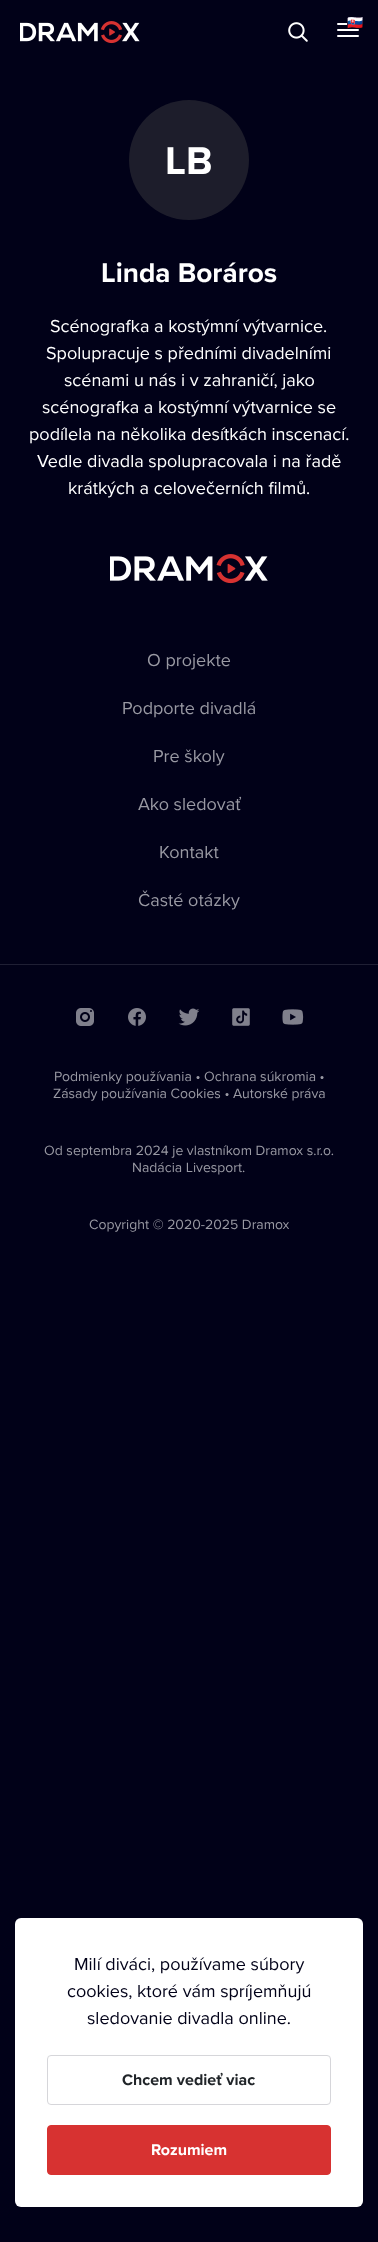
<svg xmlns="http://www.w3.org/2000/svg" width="378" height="2242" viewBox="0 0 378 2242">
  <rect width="100%" height="100%" fill="#010118"/>
  <image x="20" y="21" width="120" height="23" href="img1.png"/>
  <image x="288" y="22" width="20" height="20" href="img2.png"/>
  <path d="M338 30H358M338 24H358M338 36H358" fill="none" stroke="#ffffff" stroke-width="2" stroke-linecap="round"/>
  <rect x="347" y="17" width="17" height="11" rx="3" fill="#010118"/>
  <text x="347" y="27" font-family="Noto Color Emoji" font-size="13" fill="#ffffff">🇸🇰</text>
  <circle cx="189" cy="160" r="60" fill="#1d1d2b"/>
  <text x="165" y="174" font-family="Proxima Nova" font-size="40" font-weight="bold" fill="#ffffff">LB</text>
  <text x="101" y="282" font-family="Proxima Nova" font-size="28" font-weight="bold" fill="#ffffff">Linda Boráros</text>
  <text x="50" y="332" font-family="Proxima Nova" font-size="18" fill="#ffffff">Scénografka a kostýmní výtvarnice.</text>
  <text x="46" y="359" font-family="Proxima Nova" font-size="18" fill="#ffffff">Spolupracuje s předními divadelními</text>
  <text x="64" y="386" font-family="Proxima Nova" font-size="18" fill="#ffffff">scénami u nás i v zahraničí, jako</text>
  <text x="42" y="413" font-family="Proxima Nova" font-size="18" fill="#ffffff">scénografka a kostýmní výtvarnice se</text>
  <text x="29" y="440" font-family="Proxima Nova" font-size="18" fill="#ffffff">podílela na několika desítkách inscenací.</text>
  <text x="37" y="467" font-family="Proxima Nova" font-size="18" fill="#ffffff">Vedle divadla spolupracovala i na řadě</text>
  <text x="68" y="494" font-family="Proxima Nova" font-size="18" fill="#ffffff">krátkých a celovečerních filmů.</text>
  <image x="110" y="554" width="158" height="30" href="img3.png"/>
  <rect x="0" y="964" width="378" height="1" fill="#1f1f34"/>
  <text x="147" y="666" font-family="Proxima Nova" font-size="18" fill="#9999a3">O projekte</text>
  <text x="122" y="714" font-family="Proxima Nova" font-size="18" fill="#9999a3">Podporte divadlá</text>
  <text x="153" y="762" font-family="Proxima Nova" font-size="18" fill="#9999a3">Pre školy</text>
  <text x="138" y="810" font-family="Proxima Nova" font-size="18" fill="#9999a3">Ako sledovať</text>
  <text x="159" y="858" font-family="Proxima Nova" font-size="18" fill="#9999a3">Kontakt</text>
  <text x="138" y="906" font-family="Proxima Nova" font-size="18" fill="#9999a3">Časté otázky</text>
  <image x="76" y="1008" width="18" height="18" href="img4.png"/>
  <image x="128" y="1008" width="18" height="18" href="img5.png"/>
  <image x="178" y="1008" width="22" height="18" href="img6.png"/>
  <image x="232" y="1008" width="18" height="18" href="img7.png"/>
  <image x="282" y="1009" width="22" height="16" href="img8.png"/>
  <text x="54" y="1081" font-family="Proxima Nova" font-size="14" fill="#9999a3">Podmienky používania • Ochrana súkromia •</text>
  <text x="53" y="1098" font-family="Proxima Nova" font-size="14" fill="#9999a3">Zásady používania Cookies • Autorské práva</text>
  <text x="44" y="1155" font-family="Proxima Nova" font-size="14" fill="#9999a3">Od septembra 2024 je vlastníkom Dramox s.r.o.</text>
  <text x="132" y="1172" font-family="Proxima Nova" font-size="14" fill="#9999a3">Nadácia Livesport.</text>
  <text x="89" y="1229" font-family="Proxima Nova" font-size="14" fill="#9999a3">Copyright © 2020-2025 Dramox</text>
  <rect x="15" y="1918" width="348" height="289" rx="6" fill="#ffffff"/>
  <text x="74" y="1970" font-family="Proxima Nova" font-size="18" fill="#010118">Milí diváci, používame súbory</text>
  <text x="67" y="1997" font-family="Proxima Nova" font-size="18" fill="#010118">cookies, ktoré vám spríjemňujú</text>
  <text x="87" y="2024" font-family="Proxima Nova" font-size="18" fill="#010118">sledovanie divadla online.</text>
  <rect x="47.5" y="2055.5" width="283" height="49" rx="3.5" fill="none" stroke="#d6d6da"/>
  <text x="122" y="2085" font-family="Proxima Nova" font-size="16" font-weight="bold" fill="#212529">Chcem vedieť viac</text>
  <rect x="47.5" y="2125.5" width="283" height="49" rx="3.5" fill="#d73231" stroke="#d73231"/>
  <text x="151" y="2155" font-family="Proxima Nova" font-size="16" font-weight="bold" fill="#ffffff">Rozumiem</text>
</svg>
